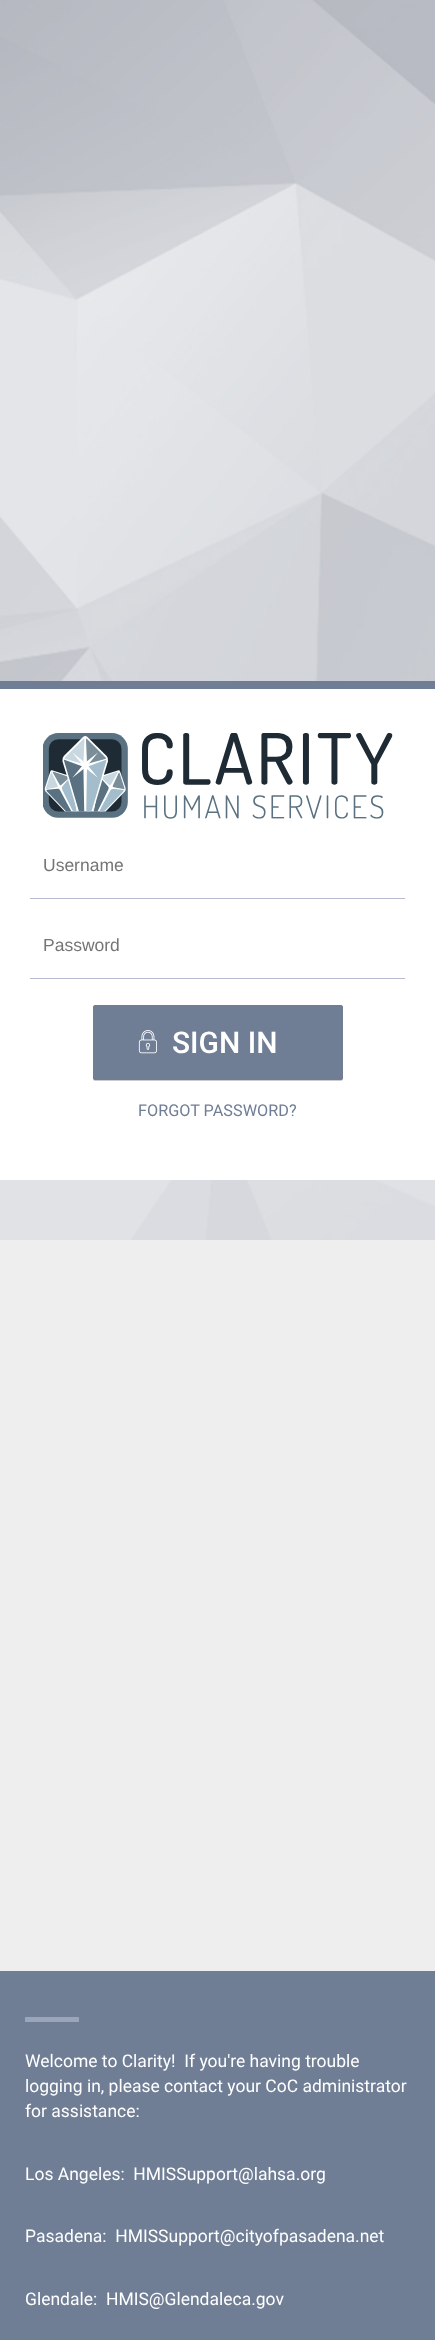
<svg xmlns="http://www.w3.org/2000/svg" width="435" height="2340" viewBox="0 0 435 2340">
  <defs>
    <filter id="blur1" x="-50%" y="-200%" width="200%" height="500%"><feGaussianBlur stdDeviation="0.5"/></filter>
  </defs>
  <rect width="100%" height="100%" fill="#eeeeee"/>
  <image x="0" y="0" width="435" height="1240" href="img1.png"/>
  <rect x="0" y="689" width="435" height="491" fill="#ffffff"/>
  <rect x="0" y="681" width="435" height="8" fill="#6f7d95"/>
  <image x="43" y="733" width="350" height="86" href="img2.png"/>
  <rect x="30" y="898" width="375" height="1" fill="#b7bbd0"/>
  <text x="43" y="871" font-family="Liberation Sans" font-size="17.5" fill="#757575">Username</text>
  <rect x="30" y="978" width="375" height="1" fill="#b7bbd0"/>
  <text x="43" y="951" font-family="Liberation Sans" font-size="17.5" fill="#757575">Password</text>
  <rect x="93" y="1006" width="250" height="75" rx="2.5" fill="#000000" fill-opacity="0.2" filter="url(#blur1)"/>
  <rect x="93" y="1005" width="250" height="75" rx="2.5" fill="#6f7d95"/>
  <image x="138" y="1030" width="19" height="24" href="img3.png"/>
  <rect x="93.5" y="1005.5" width="249" height="74" rx="2" fill="none" stroke="#6f7d95"/>
  <text x="172" y="1053" font-family="Roboto" font-size="30" font-weight="500" fill="#ffffff">SIGN IN</text>
  <text x="138" y="1116" font-family="Roboto" font-size="16.25" fill="#6f7d95">FORGOT PASSWORD?</text>
  <rect x="0" y="1971" width="435" height="369" fill="#6f7d95"/>
  <rect x="25" y="2017" width="54" height="5" fill="#9ba5b9"/>
  <text x="25" y="2067" font-family="Roboto" font-size="17.5" fill="#ffffff" xml:space="preserve">Welcome to Clarity!  If you're having trouble</text>
  <text x="25" y="2092" font-family="Roboto" font-size="17.5" fill="#ffffff">logging in, please contact your CoC administrator</text>
  <text x="25" y="2117" font-family="Roboto" font-size="17.5" fill="#ffffff">for assistance:</text>
  <text x="25" y="2180" font-family="Roboto" font-size="17.5" fill="#ffffff" xml:space="preserve">Los Angeles:  HMISSupport@lahsa.org</text>
  <text x="25" y="2242" font-family="Roboto" font-size="17.5" fill="#ffffff" xml:space="preserve">Pasadena:  HMISSupport@cityofpasadena.net</text>
  <text x="25" y="2305" font-family="Roboto" font-size="17.5" fill="#ffffff" xml:space="preserve">Glendale:  HMIS@Glendaleca.gov</text>
</svg>
